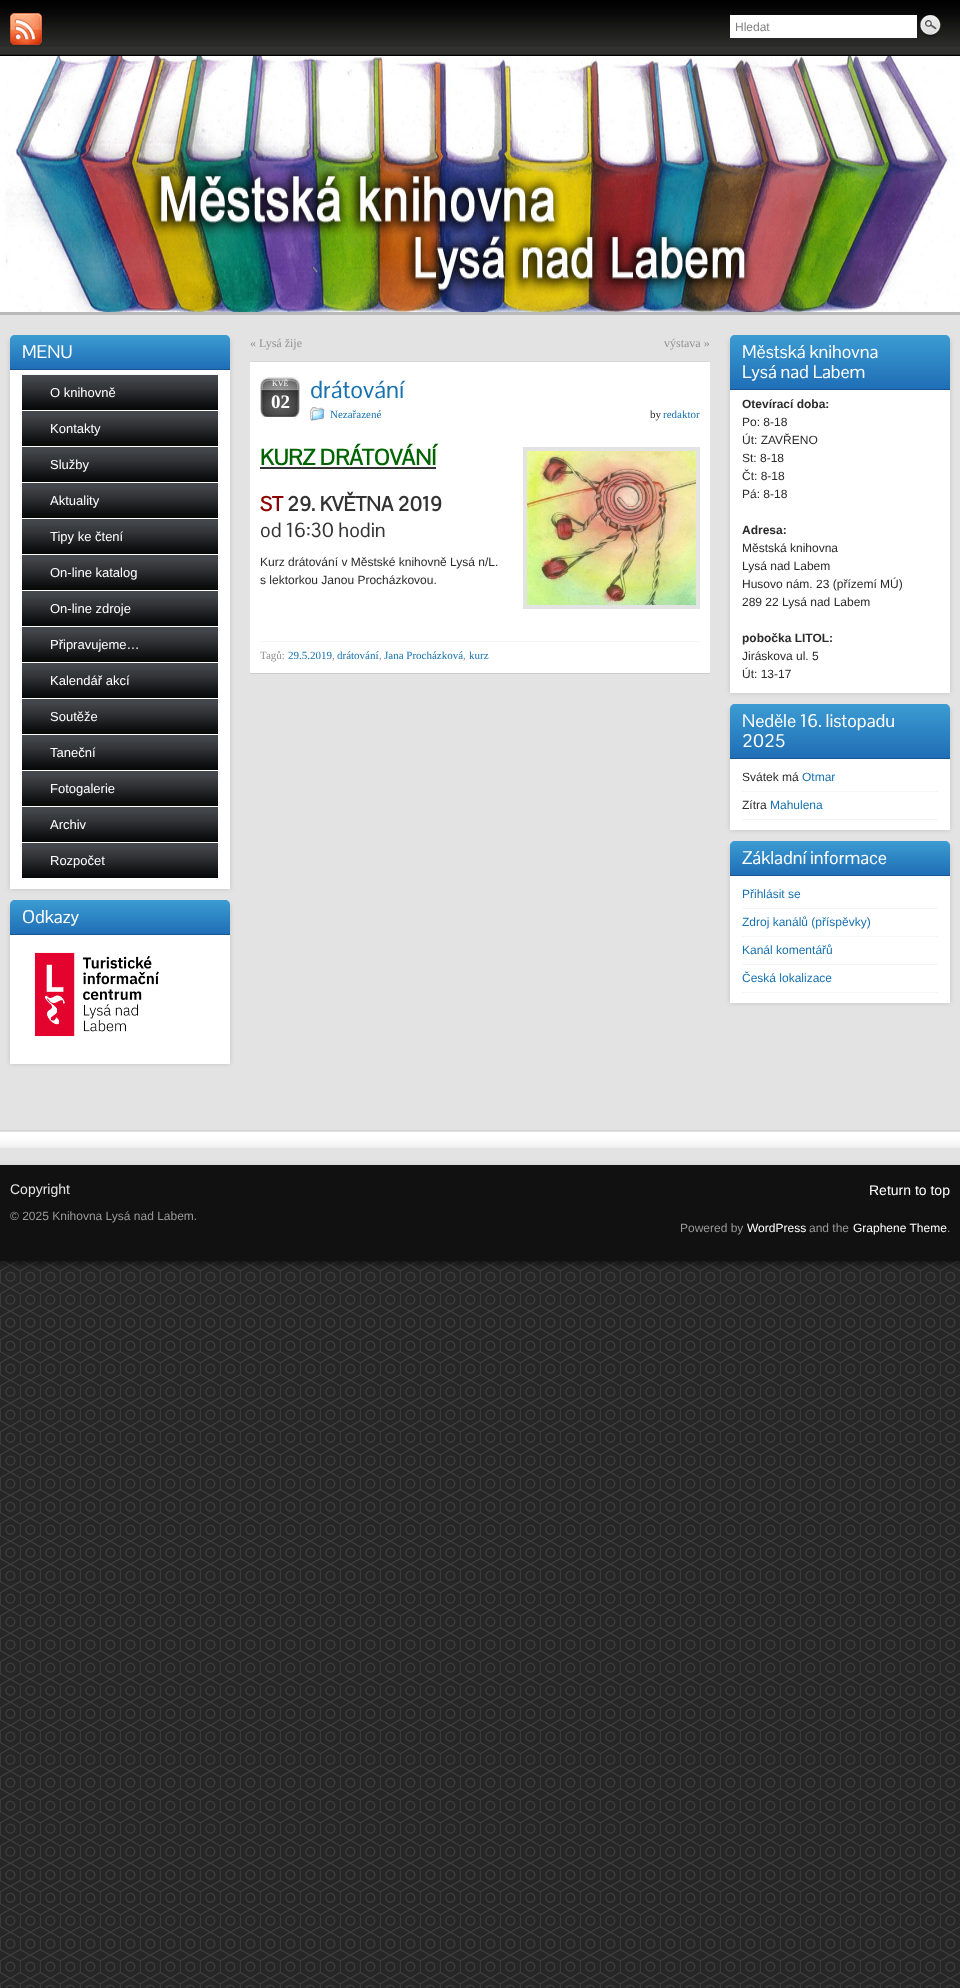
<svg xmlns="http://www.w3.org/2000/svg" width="960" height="1988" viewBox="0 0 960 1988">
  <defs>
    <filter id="blur1" x="-50%" y="-200%" width="200%" height="500%"><feGaussianBlur stdDeviation="5"/></filter>
    <filter id="blur2" x="-50%" y="-200%" width="200%" height="500%"><feGaussianBlur stdDeviation="2.5"/></filter>
    <linearGradient id="g1" gradientUnits="userSpaceOnUse" x1="120" y1="335" x2="120" y2="369"><stop offset="0" stop-color="#3c9cd2"/><stop offset="1" stop-color="#1f6eb6"/></linearGradient>
    <linearGradient id="g2" gradientUnits="userSpaceOnUse" x1="120" y1="900" x2="120" y2="934"><stop offset="0" stop-color="#3c9cd2"/><stop offset="1" stop-color="#1f6eb6"/></linearGradient>
    <linearGradient id="g3" gradientUnits="userSpaceOnUse" x1="840" y1="335" x2="840" y2="389"><stop offset="0" stop-color="#3c9cd2"/><stop offset="1" stop-color="#1f6eb6"/></linearGradient>
    <linearGradient id="g4" gradientUnits="userSpaceOnUse" x1="840" y1="704" x2="840" y2="758"><stop offset="0" stop-color="#3c9cd2"/><stop offset="1" stop-color="#1f6eb6"/></linearGradient>
    <linearGradient id="g5" gradientUnits="userSpaceOnUse" x1="840" y1="841" x2="840" y2="875"><stop offset="0" stop-color="#3c9cd2"/><stop offset="1" stop-color="#1f6eb6"/></linearGradient>
  </defs>
  <rect width="100%" height="100%" fill="#ffffff"/>
  <image x="0" y="1261" width="960" height="727" href="img1.png"/>
  <rect x="0" y="0" width="960" height="1261" fill="#000000" filter="url(#blur1)"/>
  <rect x="0" y="47" width="960" height="7" fill="#313130"/>
  <image x="0" y="0" width="960" height="47" href="img2.png"/>
  <rect x="0" y="54" width="960" height="1" fill="#222222"/>
  <image x="10" y="13" width="32" height="32" href="img3.png"/>
  <rect x="730" y="15" width="187" height="23" fill="#ffffff"/>
  <text x="735" y="31" font-family="Liberation Sans" font-size="12" fill="#808080">Hledat</text>
  <image x="920" y="15" width="21" height="22" href="img4.png"/>
  <rect x="0" y="55" width="960" height="1" fill="#000000"/>
  <image x="0" y="56" width="960" height="256" href="img5.png"/>
  <rect x="0" y="312" width="960" height="3" fill="#bababa"/>
  <rect x="0" y="315" width="960" height="815" fill="#e3e3e3"/>
  <rect x="10" y="340" width="220" height="549" fill="#000000" fill-opacity="0.15" filter="url(#blur2)"/>
  <rect x="10" y="370" width="220" height="519" fill="#ffffff"/>
  <path d="M15 335H225C228 335 230 337 230 340V369H10V340C10 337 12 335 15 335Z" fill="url(#g1)"/>
  <rect x="10" y="369" width="220" height="1" fill="#195392"/>
  <text x="22" y="358" font-family="Pontano Sans" font-size="18" fill="#ffffff">MENU</text>
  <image x="22" y="375" width="196" height="35" href="img6.png"/>
  <text x="50" y="397" font-family="Liberation Sans" font-size="13" fill="#ffffff">O knihovně</text>
  <image x="22" y="411" width="196" height="35" href="img6.png"/>
  <text x="50" y="433" font-family="Liberation Sans" font-size="13" fill="#ffffff">Kontakty</text>
  <image x="22" y="447" width="196" height="35" href="img6.png"/>
  <text x="50" y="469" font-family="Liberation Sans" font-size="13" fill="#ffffff">Služby</text>
  <image x="22" y="483" width="196" height="35" href="img6.png"/>
  <text x="50" y="505" font-family="Liberation Sans" font-size="13" fill="#ffffff">Aktuality</text>
  <image x="22" y="519" width="196" height="35" href="img6.png"/>
  <text x="50" y="541" font-family="Liberation Sans" font-size="13" fill="#ffffff">Tipy ke čtení</text>
  <image x="22" y="555" width="196" height="35" href="img6.png"/>
  <text x="50" y="577" font-family="Liberation Sans" font-size="13" fill="#ffffff">On-line katalog</text>
  <image x="22" y="591" width="196" height="35" href="img6.png"/>
  <text x="50" y="613" font-family="Liberation Sans" font-size="13" fill="#ffffff">On-line zdroje</text>
  <image x="22" y="627" width="196" height="35" href="img6.png"/>
  <text x="50" y="649" font-family="Liberation Sans" font-size="13" fill="#ffffff">Připravujeme…</text>
  <image x="22" y="663" width="196" height="35" href="img6.png"/>
  <text x="50" y="685" font-family="Liberation Sans" font-size="13" fill="#ffffff">Kalendář akcí</text>
  <image x="22" y="699" width="196" height="35" href="img6.png"/>
  <text x="50" y="721" font-family="Liberation Sans" font-size="13" fill="#ffffff">Soutěže</text>
  <image x="22" y="735" width="196" height="35" href="img6.png"/>
  <text x="50" y="757" font-family="Liberation Sans" font-size="13" fill="#ffffff">Taneční</text>
  <image x="22" y="771" width="196" height="35" href="img6.png"/>
  <text x="50" y="793" font-family="Liberation Sans" font-size="13" fill="#ffffff">Fotogalerie</text>
  <image x="22" y="807" width="196" height="35" href="img6.png"/>
  <text x="50" y="829" font-family="Liberation Sans" font-size="13" fill="#ffffff">Archiv</text>
  <image x="22" y="843" width="196" height="35" href="img6.png"/>
  <text x="50" y="865" font-family="Liberation Sans" font-size="13" fill="#ffffff">Rozpočet</text>
  <rect x="10" y="905" width="220" height="159" fill="#000000" fill-opacity="0.15" filter="url(#blur2)"/>
  <rect x="10" y="935" width="220" height="129" fill="#ffffff"/>
  <path d="M15 900H225C228 900 230 902 230 905V934H10V905C10 902 12 900 15 900Z" fill="url(#g2)"/>
  <rect x="10" y="934" width="220" height="1" fill="#195392"/>
  <text x="22" y="923" font-family="Pontano Sans" font-size="18" fill="#ffffff">Odkazy</text>
  <image x="34" y="952" width="125" height="85" href="img7.png"/>
  <text x="250" y="347" font-family="Liberation Serif" font-size="12" fill="#929292">« Lysá žije</text>
  <text x="664" y="347" font-family="Liberation Serif" font-size="12" fill="#929292">výstava »</text>
  <rect x="250" y="362" width="460" height="311" fill="#ffffff"/>
  <rect x="250" y="361" width="460" height="1" fill="#d8d8d8"/>
  <rect x="250" y="673" width="460" height="1" fill="#cccccc"/>
  <image x="260" y="377" width="40" height="40" href="img8.png"/>
  <text x="272" y="386" font-family="Liberation Serif" font-size="8" fill="#ffffff">KVĚ</text>
  <text x="271" y="408" font-family="Liberation Serif" font-size="19" font-weight="bold" fill="#ffffff">02</text>
  <text x="310" y="398" font-family="Pontano Sans" font-size="24" fill="#1772af">drátování</text>
  <image x="310" y="407" width="15" height="14" href="img9.png"/>
  <text x="330" y="418" font-family="Liberation Serif" font-size="11" fill="#1772af">Nezařazené</text>
  <text x="650" y="418" font-family="Liberation Serif" font-size="11" fill="#2c2b2b">by</text>
  <text x="663" y="418" font-family="Liberation Serif" font-size="11" fill="#1772af">redaktor</text>
  <text x="260" y="465" font-family="Pontano Sans" font-size="22" font-weight="bold" fill="#006400">KURZ DRÁTOVÁNÍ</text>
  <rect x="260" y="467" width="176" height="2" fill="#333333"/>
  <rect x="525" y="449" width="173" height="158" fill="none" stroke="#e3e3e3" stroke-width="4"/>
  <image x="527" y="451" width="169" height="154" href="img10.png"/>
  <text x="260" y="511" font-family="Pontano Sans" font-size="20" font-weight="bold" fill="#8b0000">ST</text>
  <text x="287" y="511" font-family="Pontano Sans" font-size="20" font-weight="bold" fill="#333333">29. KVĚTNA 2019</text>
  <text x="260" y="537" font-family="Pontano Sans" font-size="20" fill="#333333">od 16:30 hodin</text>
  <text x="260" y="566" font-family="Liberation Sans" font-size="12" fill="#2c2b2b">Kurz drátování v Městské knihovně Lysá n/L.</text>
  <text x="260" y="584" font-family="Liberation Sans" font-size="12" fill="#2c2b2b">s lektorkou Janou Procházkovou.</text>
  <rect x="260" y="641" width="440" height="1" fill="#f5f5f5"/>
  <text x="260" y="659" font-family="Liberation Serif" font-size="11" fill="#929292">Tagů:</text>
  <text x="288" y="659" font-family="Liberation Serif" font-size="11" fill="#1772af">29.5.2019</text>
  <text x="332" y="659" font-family="Liberation Serif" font-size="11" fill="#929292">,</text>
  <text x="337" y="659" font-family="Liberation Serif" font-size="11" fill="#1772af">drátování</text>
  <text x="379" y="659" font-family="Liberation Serif" font-size="11" fill="#929292">,</text>
  <text x="384" y="659" font-family="Liberation Serif" font-size="11" fill="#1772af">Jana Procházková</text>
  <text x="463" y="659" font-family="Liberation Serif" font-size="11" fill="#929292">,</text>
  <text x="469" y="659" font-family="Liberation Serif" font-size="11" fill="#1772af">kurz</text>
  <rect x="730" y="340" width="220" height="353" fill="#000000" fill-opacity="0.15" filter="url(#blur2)"/>
  <rect x="730" y="390" width="220" height="303" fill="#ffffff"/>
  <path d="M735 335H945C948 335 950 337 950 340V389H730V340C730 337 732 335 735 335Z" fill="url(#g3)"/>
  <rect x="730" y="389" width="220" height="1" fill="#195392"/>
  <text x="742" y="358" font-family="Pontano Sans" font-size="18" fill="#ffffff">Městská knihovna</text>
  <text x="742" y="378" font-family="Pontano Sans" font-size="18" fill="#ffffff">Lysá nad Labem</text>
  <text x="742" y="408" font-family="Liberation Sans" font-size="12" font-weight="bold" fill="#2c2b2b">Otevírací doba:</text>
  <text x="742" y="426" font-family="Liberation Sans" font-size="12" fill="#2c2b2b">Po: 8-18</text>
  <text x="742" y="444" font-family="Liberation Sans" font-size="12" fill="#2c2b2b">Út: ZAVŘENO</text>
  <text x="742" y="462" font-family="Liberation Sans" font-size="12" fill="#2c2b2b">St: 8-18</text>
  <text x="742" y="480" font-family="Liberation Sans" font-size="12" fill="#2c2b2b">Čt: 8-18</text>
  <text x="742" y="498" font-family="Liberation Sans" font-size="12" fill="#2c2b2b">Pá: 8-18</text>
  <text x="742" y="534" font-family="Liberation Sans" font-size="12" font-weight="bold" fill="#2c2b2b">Adresa:</text>
  <text x="742" y="552" font-family="Liberation Sans" font-size="12" fill="#2c2b2b">Městská knihovna</text>
  <text x="742" y="570" font-family="Liberation Sans" font-size="12" fill="#2c2b2b">Lysá nad Labem</text>
  <text x="742" y="588" font-family="Liberation Sans" font-size="12" fill="#2c2b2b">Husovo nám. 23 (přízemí MÚ)</text>
  <text x="742" y="606" font-family="Liberation Sans" font-size="12" fill="#2c2b2b">289 22 Lysá nad Labem</text>
  <text x="742" y="642" font-family="Liberation Sans" font-size="12" font-weight="bold" fill="#2c2b2b">pobočka LITOL:</text>
  <text x="742" y="660" font-family="Liberation Sans" font-size="12" fill="#2c2b2b">Jiráskova ul. 5</text>
  <text x="742" y="678" font-family="Liberation Sans" font-size="12" fill="#2c2b2b">Út: 13-17</text>
  <rect x="730" y="709" width="220" height="121" fill="#000000" fill-opacity="0.15" filter="url(#blur2)"/>
  <rect x="730" y="759" width="220" height="71" fill="#ffffff"/>
  <path d="M735 704H945C948 704 950 706 950 709V758H730V709C730 706 732 704 735 704Z" fill="url(#g4)"/>
  <rect x="730" y="758" width="220" height="1" fill="#195392"/>
  <text x="742" y="727" font-family="Pontano Sans" font-size="18" fill="#ffffff">Neděle 16. listopadu</text>
  <text x="742" y="747" font-family="Pontano Sans" font-size="18" fill="#ffffff">2025</text>
  <rect x="742" y="791" width="196" height="1" fill="#f5f5f5"/>
  <text x="742" y="781" font-family="Liberation Sans" font-size="12" fill="#2c2b2b">Svátek má</text>
  <text x="802" y="781" font-family="Liberation Sans" font-size="12" fill="#1772af">Otmar</text>
  <rect x="742" y="819" width="196" height="1" fill="#f5f5f5"/>
  <text x="742" y="809" font-family="Liberation Sans" font-size="12" fill="#2c2b2b">Zítra</text>
  <text x="770" y="809" font-family="Liberation Sans" font-size="12" fill="#1772af">Mahulena</text>
  <rect x="730" y="846" width="220" height="157" fill="#000000" fill-opacity="0.15" filter="url(#blur2)"/>
  <rect x="730" y="876" width="220" height="127" fill="#ffffff"/>
  <path d="M735 841H945C948 841 950 843 950 846V875H730V846C730 843 732 841 735 841Z" fill="url(#g5)"/>
  <rect x="730" y="875" width="220" height="1" fill="#195392"/>
  <text x="742" y="864" font-family="Pontano Sans" font-size="18" fill="#ffffff">Základní informace</text>
  <rect x="742" y="908" width="196" height="1" fill="#f5f5f5"/>
  <text x="742" y="898" font-family="Liberation Sans" font-size="12" fill="#1772af">Přihlásit se</text>
  <rect x="742" y="936" width="196" height="1" fill="#f5f5f5"/>
  <text x="742" y="926" font-family="Liberation Sans" font-size="12" fill="#1772af">Zdroj kanálů (příspěvky)</text>
  <rect x="742" y="964" width="196" height="1" fill="#f5f5f5"/>
  <text x="742" y="954" font-family="Liberation Sans" font-size="12" fill="#1772af">Kanál komentářů</text>
  <rect x="742" y="992" width="196" height="1" fill="#f5f5f5"/>
  <text x="742" y="982" font-family="Liberation Sans" font-size="12" fill="#1772af">Česká lokalizace</text>
  <rect x="0" y="1165" width="960" height="96" fill="#111111"/>
  <image x="0" y="1131" width="960" height="34" href="img11.png"/>
  <rect x="0" y="1130" width="960" height="1" fill="#d5d5d5"/>
  <text x="10" y="1194" font-family="Liberation Sans" font-size="14" fill="#e3e3e3">Copyright</text>
  <text x="10" y="1220" font-family="Liberation Sans" font-size="12" fill="#999999">© 2025 Knihovna Lysá nad Labem.</text>
  <text x="869" y="1195" font-family="Liberation Sans" font-size="14" fill="#ffffff">Return to top</text>
  <text x="680" y="1232" font-family="Liberation Sans" font-size="12" fill="#999999">Powered by</text>
  <text x="747" y="1232" font-family="Liberation Sans" font-size="12" fill="#ffffff">WordPress</text>
  <text x="809" y="1232" font-family="Liberation Sans" font-size="12" fill="#999999">and the</text>
  <text x="853" y="1232" font-family="Liberation Sans" font-size="12" fill="#ffffff">Graphene Theme</text>
  <text x="947" y="1232" font-family="Liberation Sans" font-size="12" fill="#999999">.</text>
</svg>
